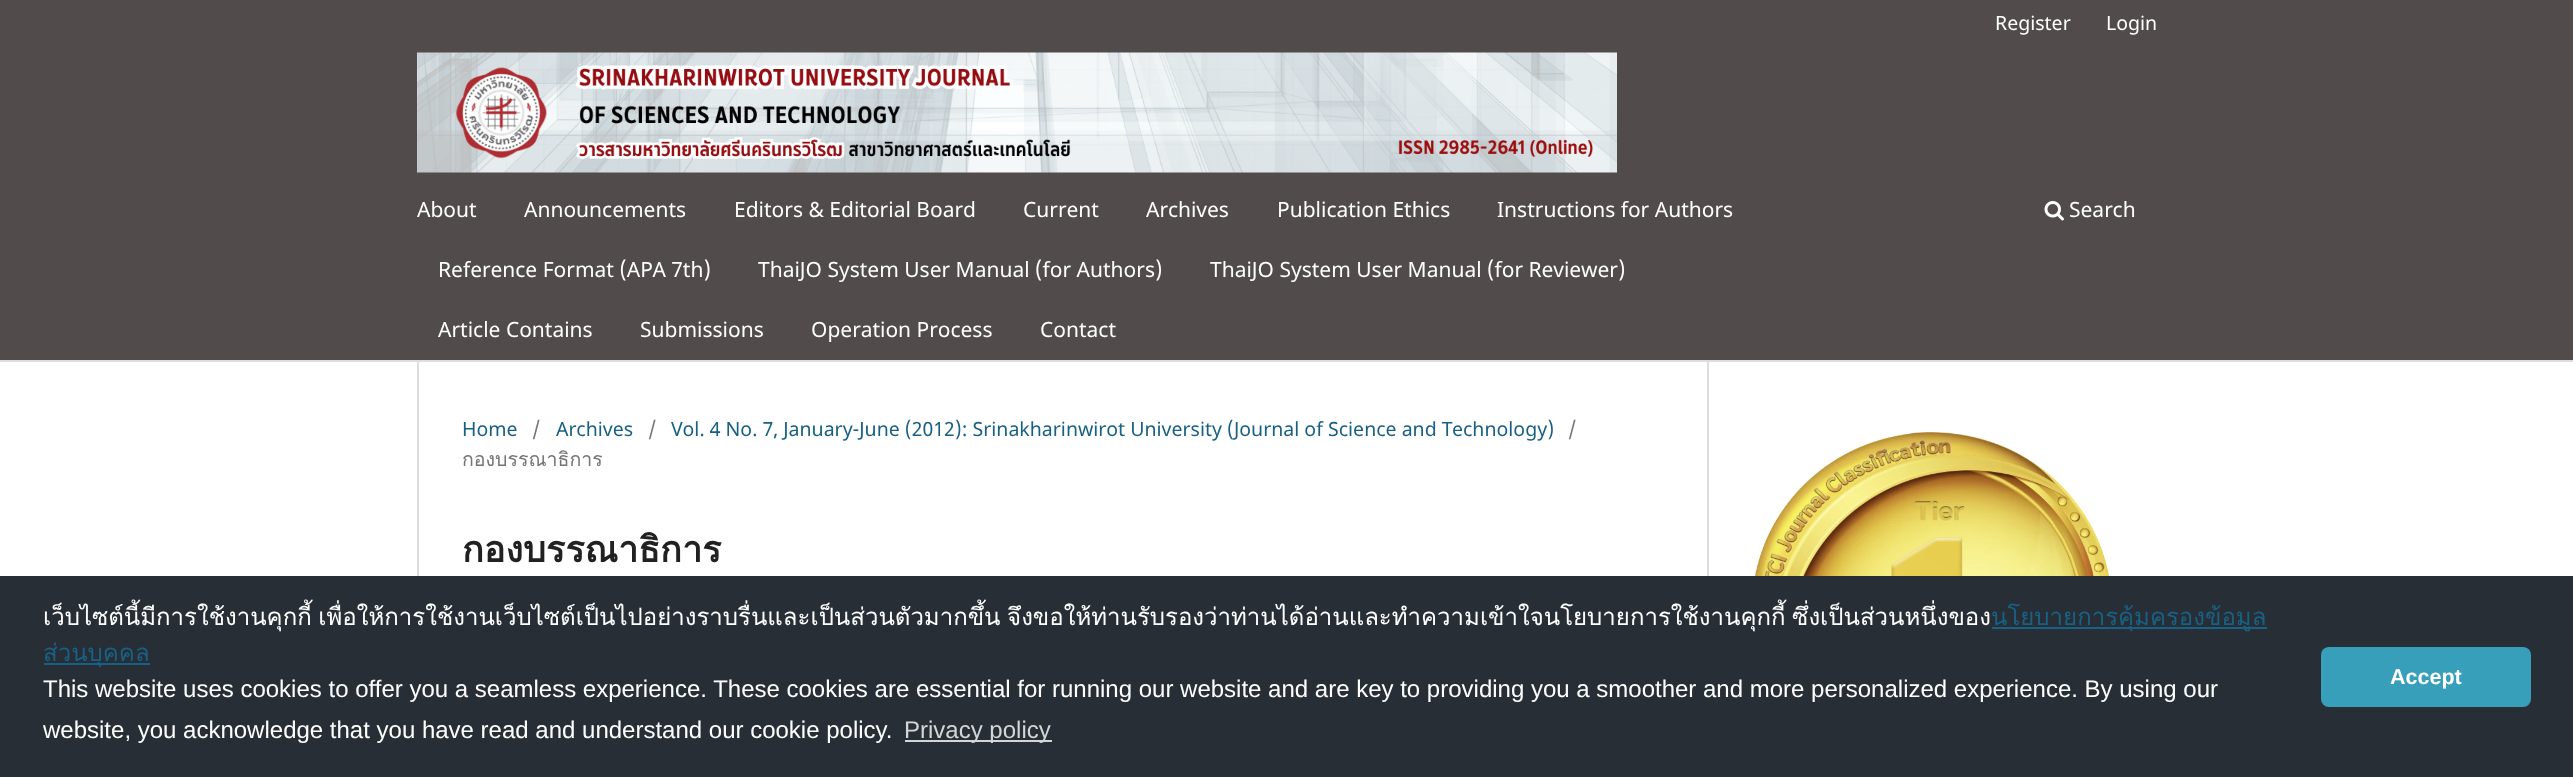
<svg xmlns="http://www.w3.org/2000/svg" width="2573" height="777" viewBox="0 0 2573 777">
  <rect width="100%" height="100%" fill="#ffffff"/>
  <rect x="0" y="0" width="2573" height="360" fill="#514b4b"/>
  <rect x="0" y="360" width="2573" height="2" fill="#dddddd"/>
  <text x="1995" y="30" font-family="Noto Sans" font-size="19.55" fill="#ffffff">Register</text>
  <text x="2106" y="30" font-family="Noto Sans" font-size="19.55" fill="#ffffff">Login</text>
  <text x="417" y="217" font-family="Noto Sans" font-size="21" fill="#ffffff">About</text>
  <text x="524" y="217" font-family="Noto Sans" font-size="21" fill="#ffffff">Announcements</text>
  <text x="734" y="217" font-family="Noto Sans" font-size="21" fill="#ffffff">Editors &amp; Editorial Board</text>
  <text x="1023" y="217" font-family="Noto Sans" font-size="21" fill="#ffffff">Current</text>
  <text x="1146" y="217" font-family="Noto Sans" font-size="21" fill="#ffffff">Archives</text>
  <text x="1277" y="217" font-family="Noto Sans" font-size="21" fill="#ffffff">Publication Ethics</text>
  <text x="1497" y="217" font-family="Noto Sans" font-size="21" fill="#ffffff">Instructions for Authors</text>
  <text x="438" y="277" font-family="Noto Sans" font-size="21" fill="#ffffff">Reference Format (APA 7th)</text>
  <text x="758" y="277" font-family="Noto Sans" font-size="21" fill="#ffffff">ThaiJO System User Manual (for Authors)</text>
  <text x="1210" y="277" font-family="Noto Sans" font-size="21" fill="#ffffff">ThaiJO System User Manual (for Reviewer)</text>
  <text x="438" y="337" font-family="Noto Sans" font-size="21" fill="#ffffff">Article Contains</text>
  <text x="640" y="337" font-family="Noto Sans" font-size="21" fill="#ffffff">Submissions</text>
  <text x="811" y="337" font-family="Noto Sans" font-size="21" fill="#ffffff">Operation Process</text>
  <text x="1040" y="337" font-family="Noto Sans" font-size="21" fill="#ffffff">Contact</text>
  <image x="2044" y="201" width="20" height="20" href="img1.png"/>
  <text x="2069" y="217" font-family="Noto Sans" font-size="21" fill="#ffffff">Search</text>
  <image x="417" y="52" width="1200" height="121" href="img2.png"/>
  <rect x="417" y="362" width="2" height="214" fill="#dddddd"/>
  <text x="462" y="436" font-family="Noto Sans" font-size="19.55" fill="#196184">Home</text>
  <text x="532" y="436" font-family="Noto Sans" font-size="19.55" fill="#757575">/</text>
  <text x="556" y="436" font-family="Noto Sans" font-size="19.55" fill="#196184">Archives</text>
  <text x="648" y="436" font-family="Noto Sans" font-size="19.55" fill="#757575">/</text>
  <text x="671" y="436" font-family="Noto Sans" font-size="19.55" fill="#196184">Vol. 4 No. 7, January-June (2012): Srinakharinwirot University (Journal of Science and Technology)</text>
  <text x="1568" y="436" font-family="Noto Sans" font-size="19.55" fill="#757575">/</text>
  <text x="462" y="466" font-family="Loma" font-size="19.55" fill="#757575">กองบรรณาธิการ</text>
  <text x="462" y="562" font-family="Loma" font-size="36" font-weight="bold" fill="#212121">กองบรรณาธิการ</text>
  <rect x="1707" y="362" width="2" height="214" fill="#dddddd"/>
  <image x="1755" y="432" width="354" height="144" href="img3.png"/>
  <rect x="0" y="576" width="2573" height="201" fill="#272e35"/>
  <text x="43" y="625" word-spacing="-1.5" font-family="Loma" font-size="24" fill="#ffffff">เว็บไซต์นี้มีการใช้งานคุกกี้ เพื่อให้การใช้งานเว็บไซต์เป็นไปอย่างราบรื่นและเป็นส่วนตัวมากขึ้น จึงขอให้ท่านรับรองว่าท่านได้อ่านและทำความเข้าใจนโยบายการใช้งานคุกกี้ ซึ่งเป็นส่วนหนึ่งของ</text>
  <rect x="1992" y="627" width="275" height="2" fill="#196184"/>
  <text x="1991" y="625" font-family="Loma" font-size="24" fill="#196184">นโยบายการคุ้มครองข้อมูล</text>
  <rect x="44" y="663" width="106" height="2" fill="#196184"/>
  <text x="43" y="661" font-family="Loma" font-size="24" fill="#196184">ส่วนบุคคล</text>
  <text x="43" y="697" font-family="Liberation Sans" font-size="24" fill="#ffffff">This website uses cookies to offer you a seamless experience. These cookies are essential for running our website and are key to providing you a smoother and more personalized experience. By using our</text>
  <text x="43" y="738" font-family="Liberation Sans" font-size="24" fill="#ffffff">website, you acknowledge that you have read and understand our cookie policy.</text>
  <rect x="905" y="740" width="147" height="2" fill="#d4d5d7"/>
  <text x="904" y="738" font-family="Liberation Sans" font-size="24" fill="#d4d5d7">Privacy policy</text>
  <rect x="2321" y="647" width="210" height="60" rx="8" fill="#389fbb"/>
  <text x="2390" y="684" font-family="Liberation Sans" font-size="21.5" font-weight="bold" fill="#ffffff">Accept</text>
</svg>
